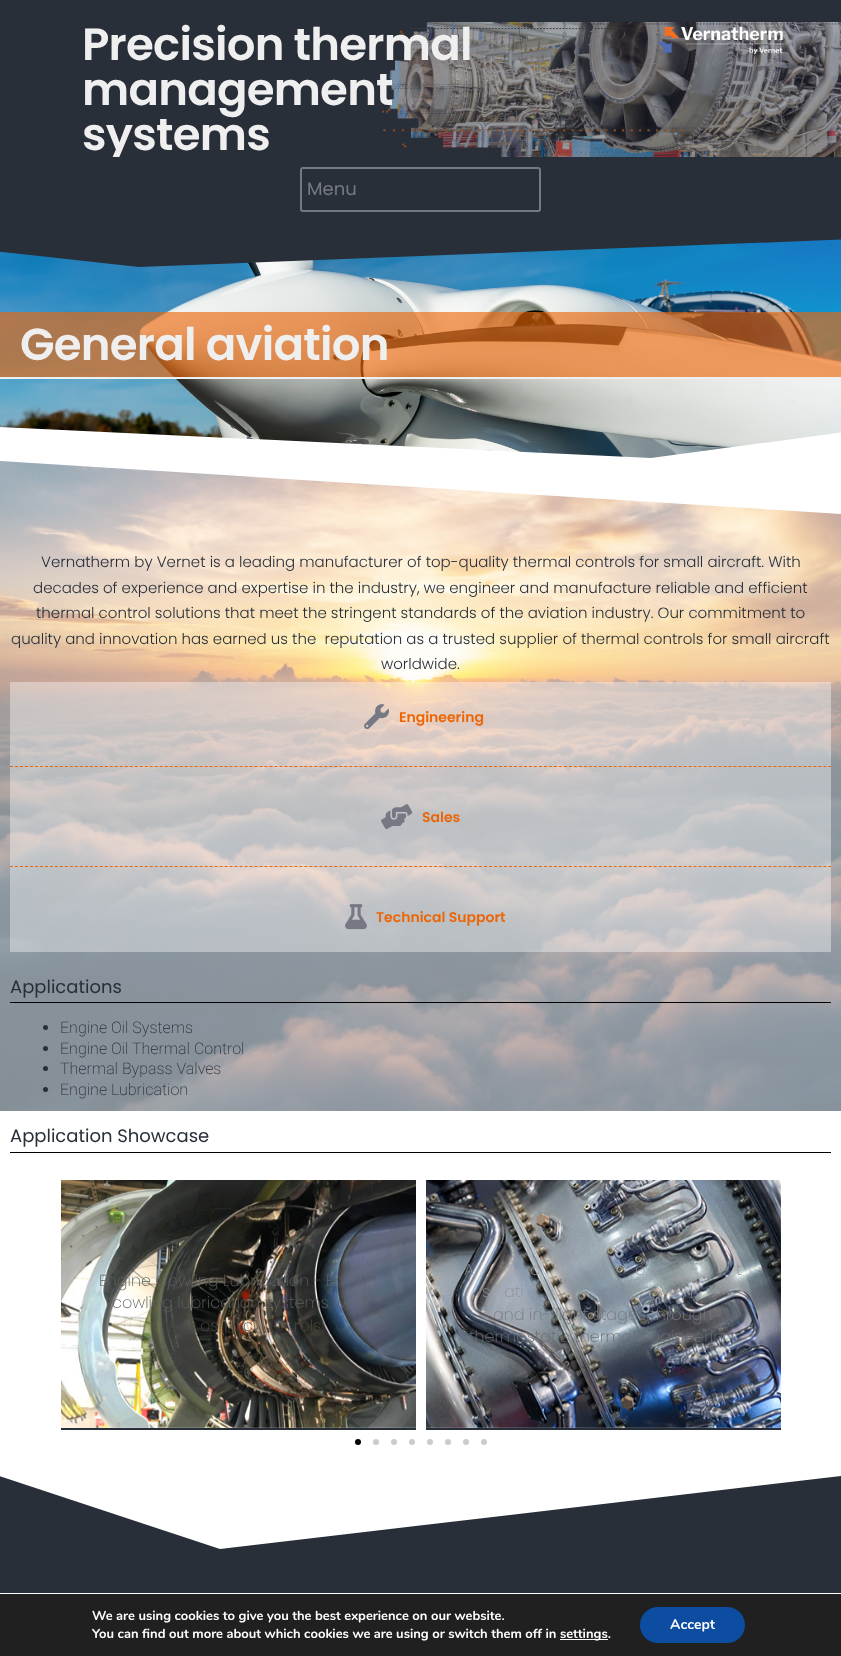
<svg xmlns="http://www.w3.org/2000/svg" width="841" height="1656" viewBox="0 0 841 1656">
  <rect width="100%" height="100%" fill="#282f39"/>
  <image x="382" y="22" width="459" height="135" href="img2.png"/>
  <text x="82" y="60" font-family="Poppins" font-size="45" font-weight="600" letter-spacing="-0.75" fill="#efefef">Precision thermal</text>
  <text x="82" y="105" font-family="Poppins" font-size="45" font-weight="600" letter-spacing="-0.75" fill="#efefef">management</text>
  <text x="82" y="150" font-family="Poppins" font-size="45" font-weight="600" letter-spacing="-0.75" fill="#efefef">systems</text>
  <image x="657" y="27" width="127" height="27" href="img1.png"/>
  <rect x="110" y="157" width="10" height="5" fill="#282f39"/>
  <rect x="301" y="168" width="239" height="43" rx="2" fill="none" stroke="#767984" stroke-width="2"/>
  <text x="307" y="195" font-family="Poppins" font-size="18" fill="#767984">Menu</text>
  <image x="0" y="239" width="841" height="219" href="img3.png"/>
  <path d="M139 267L-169 233V231H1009V233Z" fill="#282f39"/>
  <rect x="0" y="312" width="841" height="65" fill="#ec6608" fill-opacity="0.63"/>
  <rect x="0" y="377" width="841" height="2" fill="#efefef"/>
  <text x="20" y="360" font-family="Poppins" font-size="45" font-weight="600" letter-spacing="-0.75" fill="#efefef">General aviation</text>
  <path d="M651 458L-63 424V460H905V424Z" fill="#ffffff"/>
  <rect x="0" y="461" width="841" height="1088" fill="#ffffff"/>
  <image x="0" y="461" width="841" height="650" href="img4.png"/>
  <path d="M0 461V458H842V514Z" fill="#ffffff"/>
  <text x="41" y="567" font-family="Poppins" font-size="15" font-weight="300" fill="#282f39">Vernatherm by Vernet is a leading manufacturer of top-quality thermal controls for small aircraft. With</text>
  <text x="33" y="593" font-family="Poppins" font-size="15" font-weight="300" fill="#282f39">decades of experience and expertise in the industry, we engineer and manufacture reliable and efficient</text>
  <text x="36" y="618" font-family="Poppins" font-size="15" font-weight="300" fill="#282f39">thermal control solutions that meet the stringent standards of the aviation industry. Our commitment to</text>
  <text x="11" y="644" font-family="Poppins" font-size="15" font-weight="300" fill="#282f39" xml:space="preserve">quality and innovation has earned us the  reputation as a trusted supplier of thermal controls for small aircraft</text>
  <text x="381" y="669" font-family="Poppins" font-size="15" font-weight="300" fill="#282f39">worldwide.</text>
  <rect x="10" y="682" width="821" height="270" fill="#ffffff" fill-opacity="0.39"/>
  <image x="364" y="704" width="25" height="26" href="img5.png"/>
  <text x="399" y="722" font-family="Poppins" font-size="14" font-weight="600" fill="#ec6608">Engineering</text>
  <path d="M10 766.5H831" fill="none" stroke="#ec6608" stroke-dasharray="3 1.99"/>
  <image x="381" y="804" width="32" height="26" href="img6.png"/>
  <text x="422" y="822" font-family="Poppins" font-size="14" font-weight="600" fill="#ec6608">Sales</text>
  <path d="M10 866.5H831" fill="none" stroke="#ec6608" stroke-dasharray="3 1.99"/>
  <image x="345" y="904" width="22" height="26" href="img7.png"/>
  <text x="376" y="922" font-family="Poppins" font-size="14" font-weight="600" fill="#ec6608">Technical Support</text>
  <text x="10" y="993" font-family="Poppins" font-size="18" fill="#282f39">Applications</text>
  <rect x="10" y="1002" width="821" height="1" fill="#000000"/>
  <circle cx="45.5" cy="1027.5" r="2.5" fill="#282f39"/>
  <text x="60" y="1033" font-family="Roboto" font-size="16" font-weight="200" fill="#282f39">Engine Oil Systems</text>
  <circle cx="45.5" cy="1048.5" r="2.5" fill="#282f39"/>
  <text x="60" y="1054" font-family="Roboto" font-size="16" font-weight="200" fill="#282f39">Engine Oil Thermal Control</text>
  <circle cx="45.5" cy="1068.5" r="2.5" fill="#282f39"/>
  <text x="60" y="1074" font-family="Roboto" font-size="16" font-weight="200" fill="#282f39">Thermal Bypass Valves</text>
  <circle cx="45.5" cy="1089.5" r="2.5" fill="#282f39"/>
  <text x="60" y="1095" font-family="Roboto" font-size="16" font-weight="200" fill="#282f39">Engine Lubrication</text>
  <text x="10" y="1142" font-family="Poppins" font-size="18" fill="#282f39">Application Showcase</text>
  <rect x="10" y="1152" width="821" height="1" fill="#000000"/>
  <rect x="61" y="1428" width="355" height="2" fill="#282f39"/>
  <image x="61" y="1180" width="355" height="248" href="img8.png"/>
  <text x="99" y="1286" font-family="Poppins" font-size="16" font-weight="200" fill="#5e605f">Engine Cowling Lubrication - En</text>
  <text x="112" y="1308" font-family="Poppins" font-size="16" font-weight="200" fill="#5e605f">cowling lubrication systems w</text>
  <text x="200" y="1331" font-family="Poppins" font-size="16" font-weight="200" fill="#4e4940">os</text>
  <text x="243" y="1331" font-family="Poppins" font-size="16" font-weight="200" fill="#4e4940">c</text>
  <text x="294" y="1331" font-family="Poppins" font-size="16" font-weight="200" fill="#4e4940">rols.</text>
  <rect x="426" y="1428" width="355" height="2" fill="#282f39"/>
  <image x="426" y="1180" width="355" height="248" href="img9.png"/>
  <text x="464" y="1275" font-family="Poppins" font-size="16" font-weight="200" fill="#8b939b">A</text>
  <text x="530" y="1275" font-family="Poppins" font-size="16" font-weight="200" fill="#8b939b">c</text>
  <text x="635" y="1275" font-family="Poppins" font-size="16" font-weight="200" fill="#8b939b">o</text>
  <text x="692" y="1275" font-family="Poppins" font-size="16" font-weight="200" fill="#8b939b">-</text>
  <text x="736" y="1275" font-family="Poppins" font-size="16" font-weight="200" fill="#8b939b">t</text>
  <text x="482" y="1297" font-family="Poppins" font-size="16" font-weight="200" fill="#8b939b">s</text>
  <text x="504" y="1297" font-family="Poppins" font-size="16" font-weight="200" fill="#8b939b">ati</text>
  <text x="683" y="1297" font-family="Poppins" font-size="16" font-weight="200" fill="#8b939b">, l</text>
  <text x="493" y="1320" font-family="Poppins" font-size="16" font-weight="200" fill="#767984">and in-flight stages through</text>
  <text x="469" y="1342" font-family="Poppins" font-size="16" font-weight="200" fill="#686f77">thermostatic thermal engineering</text>
  <circle cx="358" cy="1442" r="3" fill="#000000"/>
  <circle cx="376" cy="1442" r="3" fill="#cccccc"/>
  <circle cx="394" cy="1442" r="3" fill="#cccccc"/>
  <circle cx="412" cy="1442" r="3" fill="#cccccc"/>
  <circle cx="430" cy="1442" r="3" fill="#cccccc"/>
  <circle cx="448" cy="1442" r="3" fill="#cccccc"/>
  <circle cx="466" cy="1442" r="3" fill="#cccccc"/>
  <circle cx="484" cy="1442" r="3" fill="#cccccc"/>
  <path d="M220 1549L841 1476V1553H-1V1476Z" fill="#282f39"/>
  <rect x="0" y="1594" width="841" height="62" fill="#202020"/>
  <rect x="0" y="1593" width="841" height="1" fill="#ffffff"/>
  <text x="92" y="1620" font-family="Nunito" font-size="13" font-weight="bold" fill="#ffffff">We are using cookies to give you the best experience on our website.</text>
  <text x="92" y="1638" font-family="Nunito" font-size="13" font-weight="bold" fill="#ffffff">You can find out more about which cookies we are using or switch them off in</text>
  <rect x="560" y="1639" width="48" height="1" fill="#ffffff"/>
  <text x="560" y="1638" font-family="Nunito" font-size="13" font-weight="bold" fill="#ffffff">settings.</text>
  <rect x="640" y="1607" width="105" height="36" rx="18" fill="#0c4da2"/>
  <text x="670" y="1629" font-family="Nunito" font-size="14" font-weight="bold" fill="#ffffff">Accept</text>
</svg>
